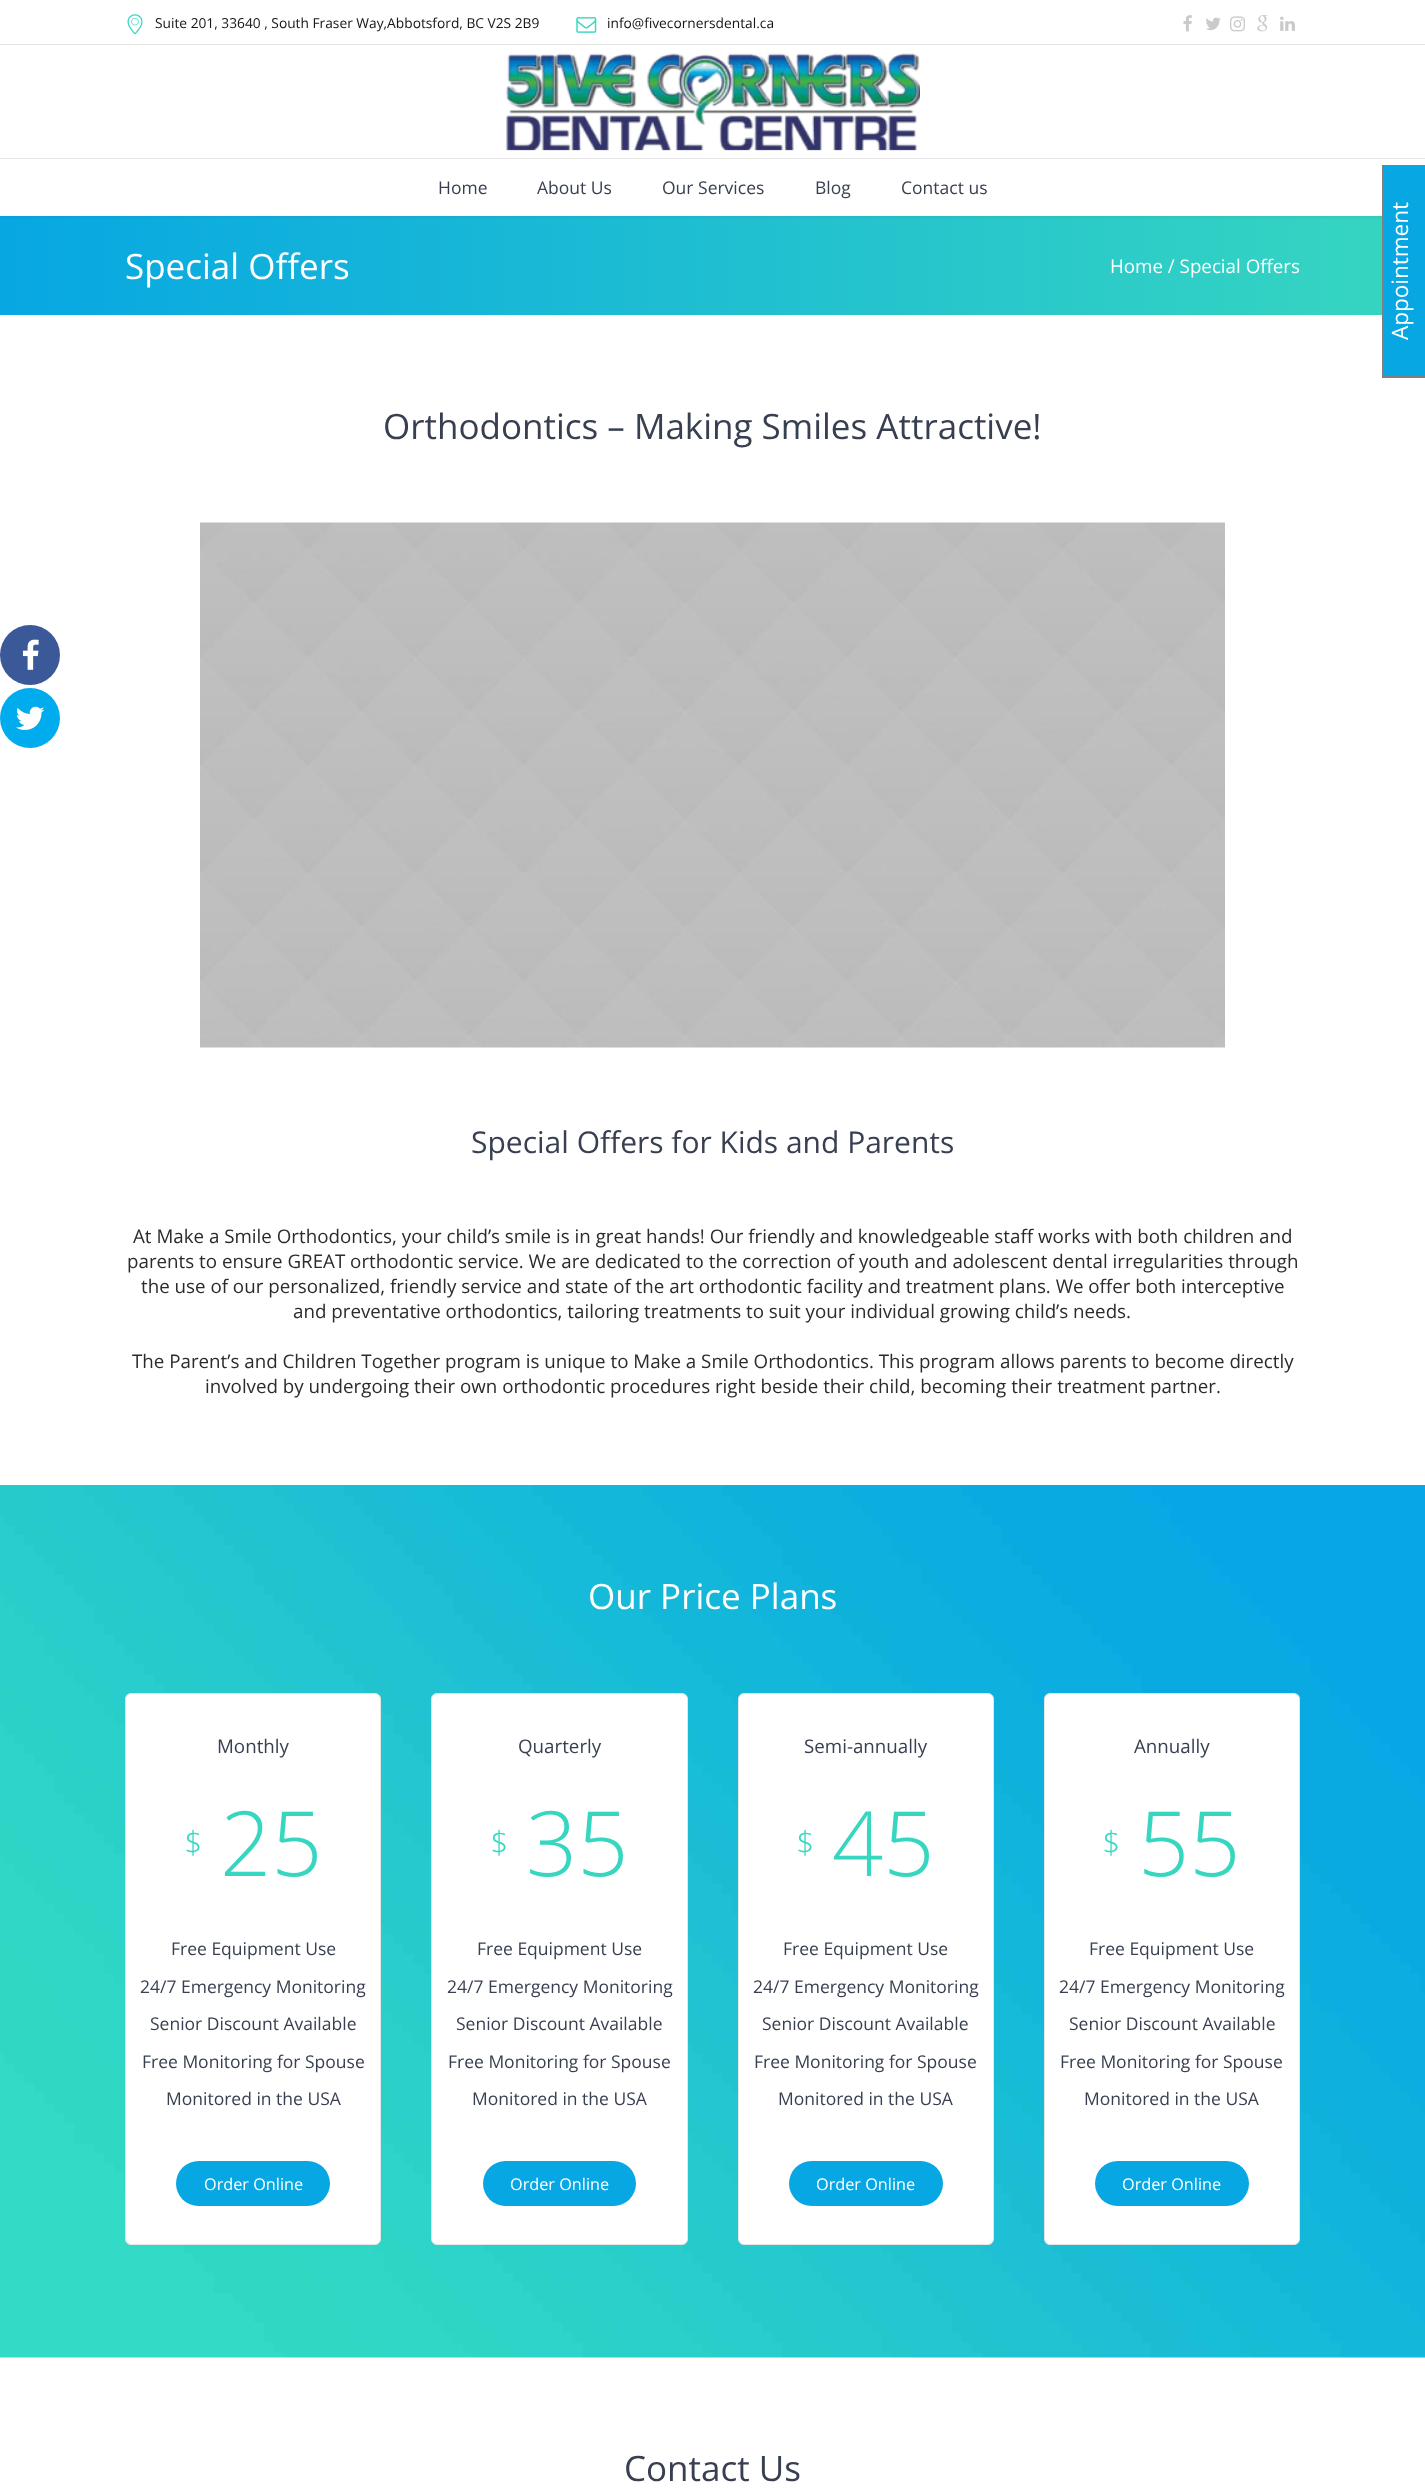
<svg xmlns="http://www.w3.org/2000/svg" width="1425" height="2488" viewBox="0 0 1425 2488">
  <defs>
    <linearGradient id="g1" gradientUnits="userSpaceOnUse" x1="0" y1="265" x2="1425" y2="265"><stop offset="0" stop-color="#07a7e3"/><stop offset="1" stop-color="#37d6c0"/></linearGradient>
    <clipPath id="clip1"><rect x="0" y="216" width="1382" height="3"/></clipPath>
    <filter id="blur1" x="-50%" y="-200%" width="200%" height="500%"><feGaussianBlur stdDeviation="3"/></filter>
  </defs>
  <rect width="100%" height="100%" fill="#ffffff"/>
  <rect x="0" y="216" width="1382" height="99" fill="url(#g1)"/>
  <g clip-path="url(#clip1)">
    <rect x="0" y="1" width="1425" height="215" fill="#000000" fill-opacity="0.1" filter="url(#blur1)"/>
  </g>
  <rect x="0" y="44" width="1425" height="1" fill="#e5e5e5"/>
  <image x="127" y="14" width="16" height="21" href="img1.png"/>
  <text x="155" y="28" font-family="Open Sans" font-size="13.75" fill="#151515">Suite 201, 33640 , South Fraser Way,Abbotsford, BC V2S 2B9</text>
  <image x="576" y="17" width="21" height="16" href="img2.png"/>
  <text x="607" y="28" font-family="Open Sans" font-size="13.75" fill="#151515">info@fivecornersdental.ca</text>
  <image x="1183" y="15" width="9" height="17" href="img3.png"/>
  <image x="1206" y="17" width="15" height="14" href="img4.png"/>
  <image x="1230" y="16" width="15" height="16" href="img5.png"/>
  <image x="1257" y="15" width="11" height="17" href="img6.png"/>
  <image x="1280" y="16" width="15" height="15" href="img7.png"/>
  <image x="506" y="50" width="414" height="101" href="img8.png"/>
  <rect x="0" y="158" width="1425" height="1" fill="#e5e5e5"/>
  <rect x="0" y="215" width="1425" height="1" fill="#ffffff"/>
  <text x="438" y="194" font-family="Open Sans" font-size="17.5" fill="#373f50">Home</text>
  <text x="537" y="194" font-family="Open Sans" font-size="17.5" fill="#373f50">About Us</text>
  <text x="662" y="194" font-family="Open Sans" font-size="17.5" fill="#373f50">Our Services</text>
  <text x="815" y="194" font-family="Open Sans" font-size="17.5" fill="#373f50">Blog</text>
  <text x="901" y="194" font-family="Open Sans" font-size="17.5" fill="#373f50">Contact us</text>
  <text x="125" y="279" font-family="Open Sans" font-size="35" fill="#ffffff">Special Offers</text>
  <text x="1110" y="273" font-family="Open Sans" font-size="18.75" fill="#ffffff">Home / Special Offers</text>
  <text x="383" y="439" font-family="Open Sans" font-size="35" fill="#373f50">Orthodontics – Making Smiles Attractive!</text>
  <image x="200" y="522" width="1025" height="526" href="img9.png"/>
  <text x="471" y="1153" font-family="Open Sans" font-size="30" fill="#373f50">Special Offers for Kids and Parents</text>
  <text x="133" y="1243" font-family="Open Sans" font-size="18.75" fill="#2b2b2b">At Make a Smile Orthodontics, your child’s smile is in great hands! Our friendly and knowledgeable staff works with both children and</text>
  <text x="127" y="1268" font-family="Open Sans" font-size="18.75" fill="#2b2b2b">parents to ensure GREAT orthodontic service. We are dedicated to the correction of youth and adolescent dental irregularities through</text>
  <text x="141" y="1293" font-family="Open Sans" font-size="18.75" fill="#2b2b2b">the use of our personalized, friendly service and state of the art orthodontic facility and treatment plans. We offer both interceptive</text>
  <text x="293" y="1318" font-family="Open Sans" font-size="18.75" fill="#2b2b2b">and preventative orthodontics, tailoring treatments to suit your individual growing child’s needs.</text>
  <text x="132" y="1368" font-family="Open Sans" font-size="18.75" fill="#2b2b2b">The Parent’s and Children Together program is unique to Make a Smile Orthodontics. This program allows parents to become directly</text>
  <text x="205" y="1393" font-family="Open Sans" font-size="18.75" fill="#2b2b2b">involved by undergoing their own orthodontic procedures right beside their child, becoming their treatment partner.</text>
  <image x="0" y="1485" width="1425" height="873" href="img10.png"/>
  <text x="588" y="1609" font-family="Open Sans" font-size="35" fill="#ffffff">Our Price Plans</text>
  <rect x="125.5" y="1693.5" width="255" height="551" rx="5.5" fill="#ffffff" stroke="#e5e5e5"/>
  <text x="217" y="1753" font-family="Open Sans" font-size="18.75" fill="#373f50">Monthly</text>
  <text x="184" y="1854" font-family="Open Sans" font-size="32" font-weight="300" fill="#37d6c0">$</text>
  <text x="220" y="1876" font-family="Open Sans" font-size="90" font-weight="300" fill="#37d6c0">25</text>
  <text x="171" y="1955" font-family="Open Sans" font-size="17.5" fill="#373f50">Free Equipment Use</text>
  <text x="140" y="1993" font-family="Open Sans" font-size="17.5" fill="#373f50">24/7 Emergency Monitoring</text>
  <text x="150" y="2030" font-family="Open Sans" font-size="17.5" fill="#373f50">Senior Discount Available</text>
  <text x="142" y="2068" font-family="Open Sans" font-size="17.5" fill="#373f50">Free Monitoring for Spouse</text>
  <text x="166" y="2105" font-family="Open Sans" font-size="17.5" fill="#373f50">Monitored in the USA</text>
  <rect x="176" y="2161" width="154" height="45" rx="22.5" fill="#07a7e3"/>
  <text x="204" y="2190" font-family="Open Sans" font-size="16.25" fill="#ffffff">Order Online</text>
  <rect x="431.5" y="1693.5" width="256" height="551" rx="5.5" fill="#ffffff" stroke="#e5e5e5"/>
  <text x="518" y="1753" font-family="Open Sans" font-size="18.75" fill="#373f50">Quarterly</text>
  <text x="490" y="1854" font-family="Open Sans" font-size="32" font-weight="300" fill="#37d6c0">$</text>
  <text x="526" y="1876" font-family="Open Sans" font-size="90" font-weight="300" fill="#37d6c0">35</text>
  <text x="477" y="1955" font-family="Open Sans" font-size="17.5" fill="#373f50">Free Equipment Use</text>
  <text x="447" y="1993" font-family="Open Sans" font-size="17.5" fill="#373f50">24/7 Emergency Monitoring</text>
  <text x="456" y="2030" font-family="Open Sans" font-size="17.5" fill="#373f50">Senior Discount Available</text>
  <text x="448" y="2068" font-family="Open Sans" font-size="17.5" fill="#373f50">Free Monitoring for Spouse</text>
  <text x="472" y="2105" font-family="Open Sans" font-size="17.5" fill="#373f50">Monitored in the USA</text>
  <rect x="483" y="2161" width="153" height="45" rx="22.5" fill="#07a7e3"/>
  <text x="510" y="2190" font-family="Open Sans" font-size="16.25" fill="#ffffff">Order Online</text>
  <rect x="738.5" y="1693.5" width="255" height="551" rx="5.5" fill="#ffffff" stroke="#e5e5e5"/>
  <text x="804" y="1753" font-family="Open Sans" font-size="18.75" fill="#373f50">Semi-annually</text>
  <text x="796" y="1854" font-family="Open Sans" font-size="32" font-weight="300" fill="#37d6c0">$</text>
  <text x="832" y="1876" font-family="Open Sans" font-size="90" font-weight="300" fill="#37d6c0">45</text>
  <text x="783" y="1955" font-family="Open Sans" font-size="17.5" fill="#373f50">Free Equipment Use</text>
  <text x="753" y="1993" font-family="Open Sans" font-size="17.5" fill="#373f50">24/7 Emergency Monitoring</text>
  <text x="762" y="2030" font-family="Open Sans" font-size="17.5" fill="#373f50">Senior Discount Available</text>
  <text x="754" y="2068" font-family="Open Sans" font-size="17.5" fill="#373f50">Free Monitoring for Spouse</text>
  <text x="778" y="2105" font-family="Open Sans" font-size="17.5" fill="#373f50">Monitored in the USA</text>
  <rect x="789" y="2161" width="154" height="45" rx="22.5" fill="#07a7e3"/>
  <text x="816" y="2190" font-family="Open Sans" font-size="16.25" fill="#ffffff">Order Online</text>
  <rect x="1044.5" y="1693.5" width="255" height="551" rx="5.5" fill="#ffffff" stroke="#e5e5e5"/>
  <text x="1134" y="1753" font-family="Open Sans" font-size="18.75" fill="#373f50">Annually</text>
  <text x="1102" y="1854" font-family="Open Sans" font-size="32" font-weight="300" fill="#37d6c0">$</text>
  <text x="1138" y="1876" font-family="Open Sans" font-size="90" font-weight="300" fill="#37d6c0">55</text>
  <text x="1089" y="1955" font-family="Open Sans" font-size="17.5" fill="#373f50">Free Equipment Use</text>
  <text x="1059" y="1993" font-family="Open Sans" font-size="17.5" fill="#373f50">24/7 Emergency Monitoring</text>
  <text x="1069" y="2030" font-family="Open Sans" font-size="17.5" fill="#373f50">Senior Discount Available</text>
  <text x="1060" y="2068" font-family="Open Sans" font-size="17.5" fill="#373f50">Free Monitoring for Spouse</text>
  <text x="1084" y="2105" font-family="Open Sans" font-size="17.5" fill="#373f50">Monitored in the USA</text>
  <rect x="1095" y="2161" width="154" height="45" rx="22.5" fill="#07a7e3"/>
  <text x="1122" y="2190" font-family="Open Sans" font-size="16.25" fill="#ffffff">Order Online</text>
  <text x="624" y="2481" font-family="Open Sans" font-size="35" fill="#373f50">Contact Us</text>
  <rect x="1384" y="166" width="41" height="210" fill="#07a7e3"/>
  <rect x="1382" y="165" width="2" height="213" fill="#7f7f7f"/>
  <rect x="1382" y="165" width="43" height="1" fill="#7f7f7f"/>
  <rect x="1382" y="376" width="43" height="2" fill="#7f7f7f"/>
  <text x="1408" y="340" transform="rotate(-90 1408 340)" font-family="Open Sans" font-size="22.5" fill="#ffffff">Appointment</text>
  <circle cx="30" cy="655" r="30" fill="#3b5998"/>
  <image x="22" y="639" width="17" height="31" href="img11.png"/>
  <circle cx="30" cy="718" r="30" fill="#00aced"/>
  <image x="16" y="706" width="29" height="24" href="img12.png"/>
</svg>
